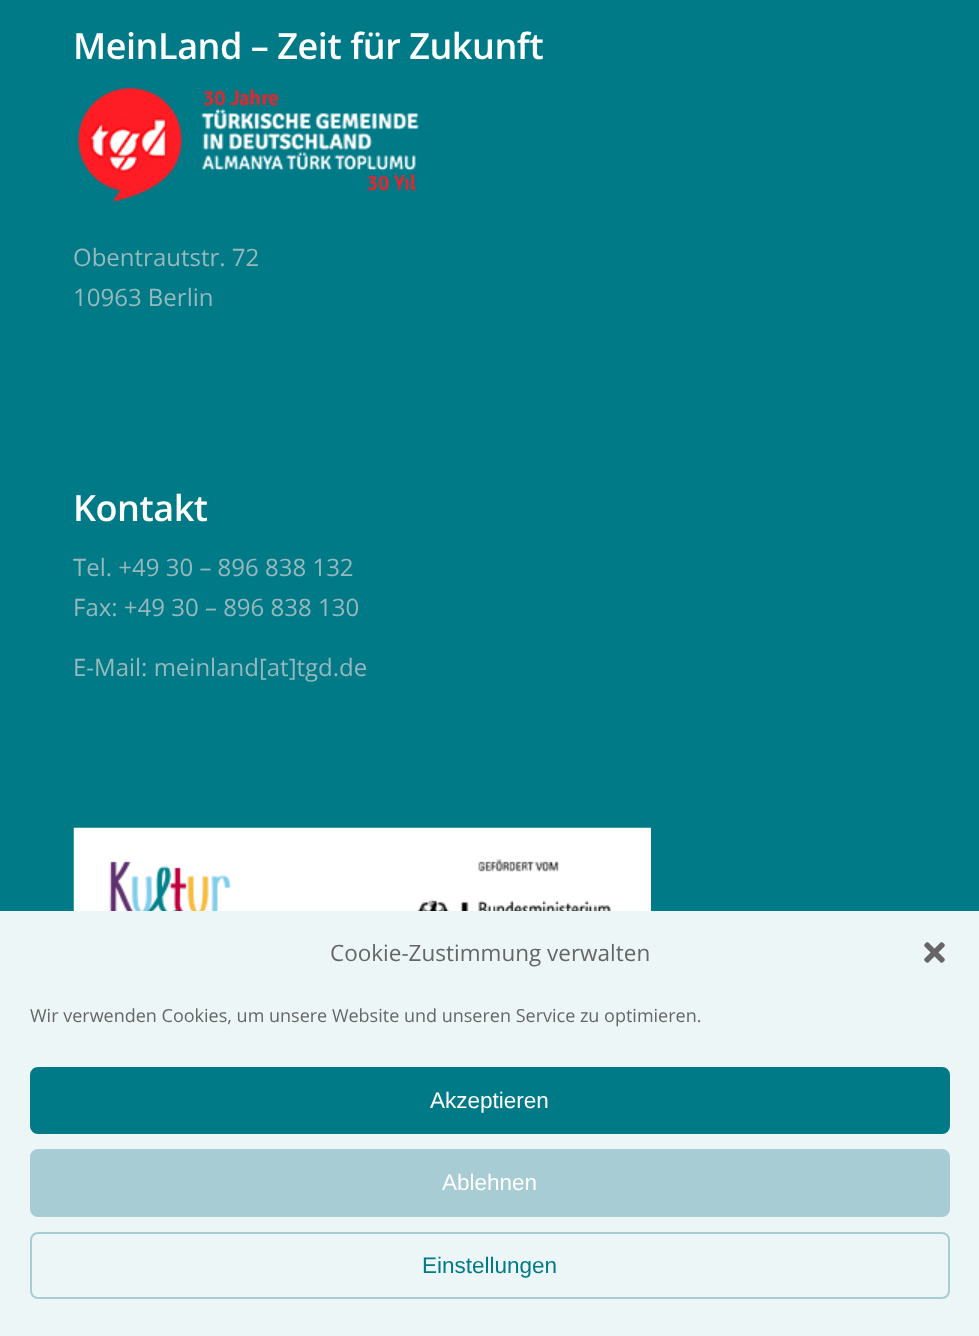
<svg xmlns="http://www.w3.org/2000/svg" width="979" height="1336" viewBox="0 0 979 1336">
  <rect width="100%" height="100%" fill="#007a87"/>
  <text x="73" y="59" font-family="Open Sans" font-size="36" font-weight="600" letter-spacing="-0.45" fill="#ffffff">MeinLand – Zeit für Zukunft</text>
  <image x="77" y="87" width="342" height="116" href="img1.png"/>
  <text x="73" y="266" font-family="Open Sans" font-size="24" fill="#97b8bd">Obentrautstr. 72</text>
  <text x="73" y="306" font-family="Open Sans" font-size="24" fill="#97b8bd">10963 Berlin</text>
  <text x="73" y="521" font-family="Open Sans" font-size="36" font-weight="600" letter-spacing="-0.45" fill="#ffffff">Kontakt</text>
  <text x="73" y="576" font-family="Open Sans" font-size="24" fill="#97b8bd">Tel. +49 30 – 896 838 132</text>
  <text x="73" y="616" font-family="Open Sans" font-size="24" fill="#97b8bd">Fax: +49 30 – 896 838 130</text>
  <text x="73" y="676" font-family="Open Sans" font-size="24" fill="#97b8bd">E-Mail: meinland[at]tgd.de</text>
  <image x="73" y="827" width="578" height="84" href="img2.png"/>
  <rect x="0" y="911" width="979" height="425" fill="#edf6f7"/>
  <text x="330" y="961" font-family="Open Sans" font-size="22.5" fill="#666666">Cookie-Zustimmung verwalten</text>
  <image x="924" y="942" width="21" height="21" href="img3.png"/>
  <text x="30" y="1022" font-family="Open Sans" font-size="18" fill="#666666">Wir verwenden Cookies, um unsere Website und unseren Service zu optimieren.</text>
  <rect x="31" y="1068" width="918" height="65" rx="7" fill="#007a87" stroke="#007a87" stroke-width="2"/>
  <text x="430" y="1108" font-family="Liberation Sans" font-size="22.5" fill="#ffffff">Akzeptieren</text>
  <rect x="31" y="1150" width="918" height="66" rx="7" fill="#a7ccd3" stroke="#a7ccd3" stroke-width="2"/>
  <text x="442" y="1190" font-family="Liberation Sans" font-size="22.5" fill="#ffffff">Ablehnen</text>
  <rect x="31" y="1233" width="918" height="65" rx="7" fill="none" stroke="#a7ccd3" stroke-width="2"/>
  <text x="422" y="1273" font-family="Liberation Sans" font-size="22.5" fill="#007a87">Einstellungen</text>
</svg>
